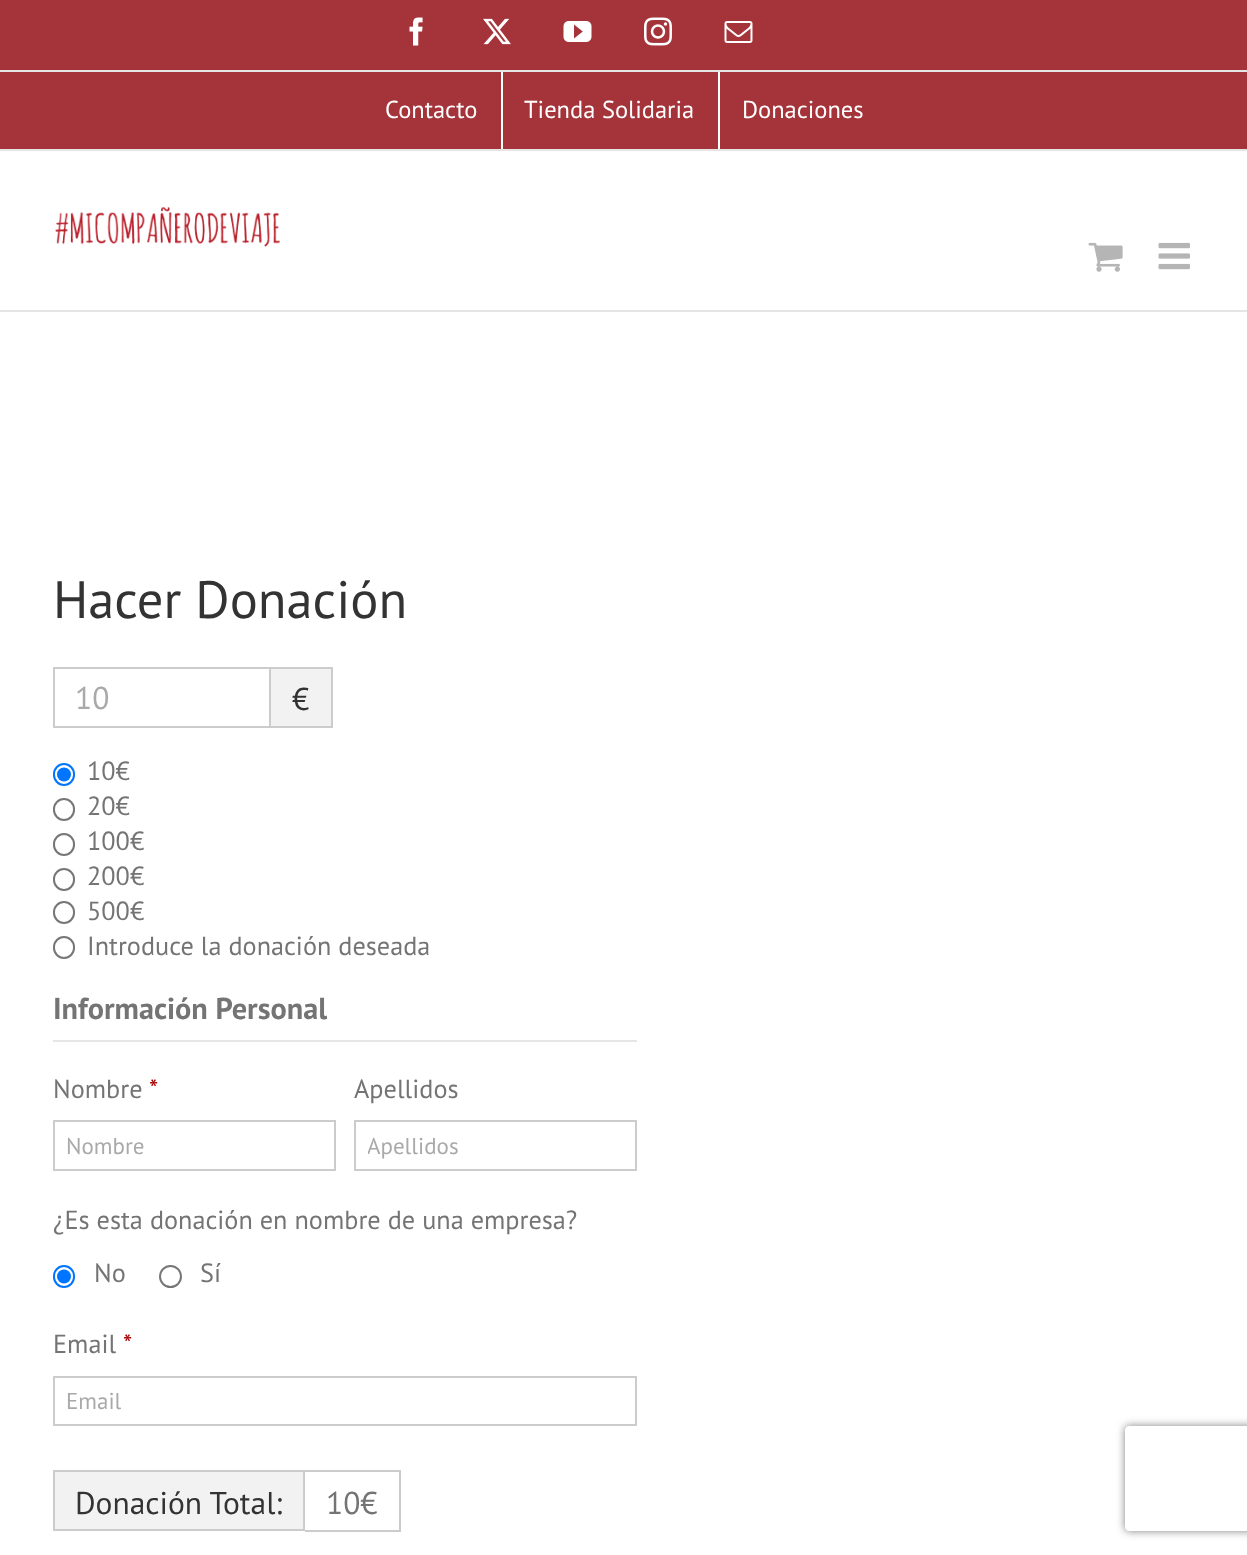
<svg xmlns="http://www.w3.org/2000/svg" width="1247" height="1555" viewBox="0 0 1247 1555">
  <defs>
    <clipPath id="clip1"><rect x="368" y="1131" width="257" height="29"/></clipPath>
    <clipPath id="clip2"><path d="M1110 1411H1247V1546H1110ZM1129 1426H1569C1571 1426 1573 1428 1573 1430V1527C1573 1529 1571 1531 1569 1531H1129C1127 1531 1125 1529 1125 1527V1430C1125 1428 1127 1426 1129 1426Z" clip-rule="evenodd"/></clipPath>
    <filter id="blur1" x="-50%" y="-200%" width="200%" height="500%"><feGaussianBlur stdDeviation="4.5"/></filter>
  </defs>
  <rect width="100%" height="100%" fill="#ffffff"/>
  <rect x="0" y="0" width="1247" height="149" fill="#a4343a"/>
  <rect x="0" y="149" width="1247" height="2" fill="#e5e5e5"/>
  <rect x="0" y="70" width="1247" height="2" fill="#e5e5e5"/>
  <image x="409" y="17" width="14" height="29" href="img1.png"/>
  <image x="483" y="18" width="28" height="27" href="img2.png"/>
  <image x="563" y="21" width="29" height="21" href="img3.png"/>
  <image x="644" y="17" width="28" height="29" href="img4.png"/>
  <image x="724" y="21" width="29" height="22" href="img5.png"/>
  <text x="385" y="118" font-family="PT Sans" font-size="24.5" fill="#ffffff">Contacto</text>
  <rect x="501" y="72" width="2" height="77" fill="#ffffff"/>
  <text x="524" y="118" font-family="PT Sans" font-size="24.5" fill="#ffffff">Tienda Solidaria</text>
  <rect x="718" y="72" width="2" height="77" fill="#ffffff"/>
  <text x="742" y="118" font-family="PT Sans" font-size="24.5" fill="#ffffff">Donaciones</text>
  <rect x="0" y="310" width="1247" height="2" fill="#e5e5e5"/>
  <image x="55" y="207" width="225" height="40" href="img6.png"/>
  <image x="1088" y="242" width="35" height="30" href="img7.png"/>
  <image x="1158" y="242" width="32" height="28" href="img8.png"/>
  <text x="53" y="618" font-family="PT Sans" font-size="52.5" fill="#333333">Hacer Donación</text>
  <rect x="54" y="668" width="216" height="59" fill="none" stroke="#cccccc" stroke-width="2"/>
  <text x="75" y="709" font-family="PT Sans" font-size="31.5" fill="#aaa9a9">10</text>
  <rect x="271" y="669" width="60" height="57" fill="#f2f2f2"/>
  <rect x="271" y="667" width="62" height="2" fill="#cccccc"/>
  <rect x="331" y="667" width="2" height="61" fill="#cccccc"/>
  <rect x="271" y="726" width="62" height="2" fill="#cccccc"/>
  <text x="292" y="710" font-family="PT Sans" font-size="31.5" fill="#333333">€</text>
  <rect x="54" y="764" width="20" height="21" rx="10" fill="none" stroke="#0075ff" stroke-width="2"/>
  <circle cx="64" cy="774.5" r="7" fill="#0075ff"/>
  <text x="87" y="780" font-family="PT Sans" font-size="26.25" fill="#747474">10€</text>
  <rect x="54" y="799" width="20" height="21" rx="10" fill="none" stroke="#767676" stroke-width="2"/>
  <text x="87" y="815" font-family="PT Sans" font-size="26.25" fill="#747474">20€</text>
  <rect x="54" y="834" width="20" height="21" rx="10" fill="none" stroke="#767676" stroke-width="2"/>
  <text x="87" y="850" font-family="PT Sans" font-size="26.25" fill="#747474">100€</text>
  <rect x="54" y="869" width="20" height="21" rx="10" fill="none" stroke="#767676" stroke-width="2"/>
  <text x="87" y="885" font-family="PT Sans" font-size="26.25" fill="#747474">200€</text>
  <rect x="54" y="902" width="20" height="21" rx="10" fill="none" stroke="#767676" stroke-width="2"/>
  <text x="87" y="920" font-family="PT Sans" font-size="26.25" fill="#747474">500€</text>
  <rect x="54" y="937" width="20" height="21" rx="10" fill="none" stroke="#767676" stroke-width="2"/>
  <text x="87" y="955" font-family="PT Sans" font-size="26.25" fill="#747474">Introduce la donación deseada</text>
  <rect x="53" y="1040" width="584" height="2" fill="#e6e6e6"/>
  <text x="53" y="1019" font-family="PT Sans" font-size="30.25" font-weight="bold" fill="#747474">Información Personal</text>
  <text x="53" y="1098" font-family="PT Sans" font-size="26.25" fill="#747474">Nombre</text>
  <text x="149" y="1098" font-family="PT Sans" font-size="26.25" fill="#aa0000">*</text>
  <rect x="54" y="1121" width="281" height="49" fill="none" stroke="#cccccc" stroke-width="2"/>
  <text x="66" y="1154" font-family="PT Sans" font-size="23" fill="#aaa9a9">Nombre</text>
  <text x="354" y="1098" font-family="PT Sans" font-size="26.25" fill="#747474">Apellidos</text>
  <rect x="355" y="1121" width="281" height="49" fill="none" stroke="#cccccc" stroke-width="2"/>
  <g clip-path="url(#clip1)">
    <text x="367" y="1154" font-family="PT Sans" font-size="23" fill="#aaa9a9">Apellidos</text>
  </g>
  <text x="53" y="1229" font-family="PT Sans" font-size="26.25" fill="#747474">¿Es esta donación en nombre de una empresa?</text>
  <rect x="54" y="1266" width="20" height="21" rx="10" fill="none" stroke="#0075ff" stroke-width="2"/>
  <circle cx="64" cy="1276.5" r="7" fill="#0075ff"/>
  <text x="94" y="1282" font-family="PT Sans" font-size="26.25" fill="#747474">No</text>
  <circle cx="170.5" cy="1276.5" r="10.5" fill="none" stroke="#767676" stroke-width="2"/>
  <text x="200" y="1282" font-family="PT Sans" font-size="26.25" fill="#747474">Sí</text>
  <text x="53" y="1353" font-family="PT Sans" font-size="26.25" fill="#747474">Email</text>
  <text x="123" y="1353" font-family="PT Sans" font-size="26.25" fill="#aa0000">*</text>
  <rect x="54" y="1377" width="582" height="48" fill="none" stroke="#cccccc" stroke-width="2"/>
  <text x="66" y="1409" font-family="PT Sans" font-size="23" fill="#aaa9a9">Email</text>
  <rect x="54" y="1471" width="250" height="59" fill="#f2f2f2" stroke="#cccccc" stroke-width="2"/>
  <text x="75" y="1514" font-family="PT Sans" font-size="31.5" fill="#333333">Donación Total:</text>
  <rect x="305" y="1470" width="96" height="2" fill="#cccccc"/>
  <rect x="399" y="1470" width="2" height="61" fill="#cccccc"/>
  <rect x="305" y="1530" width="96" height="2" fill="#cccccc"/>
  <text x="326" y="1514" font-family="PT Sans" font-size="31.5" fill="#747474">10€</text>
  <g clip-path="url(#clip2)">
    <rect x="1125" y="1426" width="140" height="105" rx="4" fill="#808080" filter="url(#blur1)"/>
  </g>
</svg>
